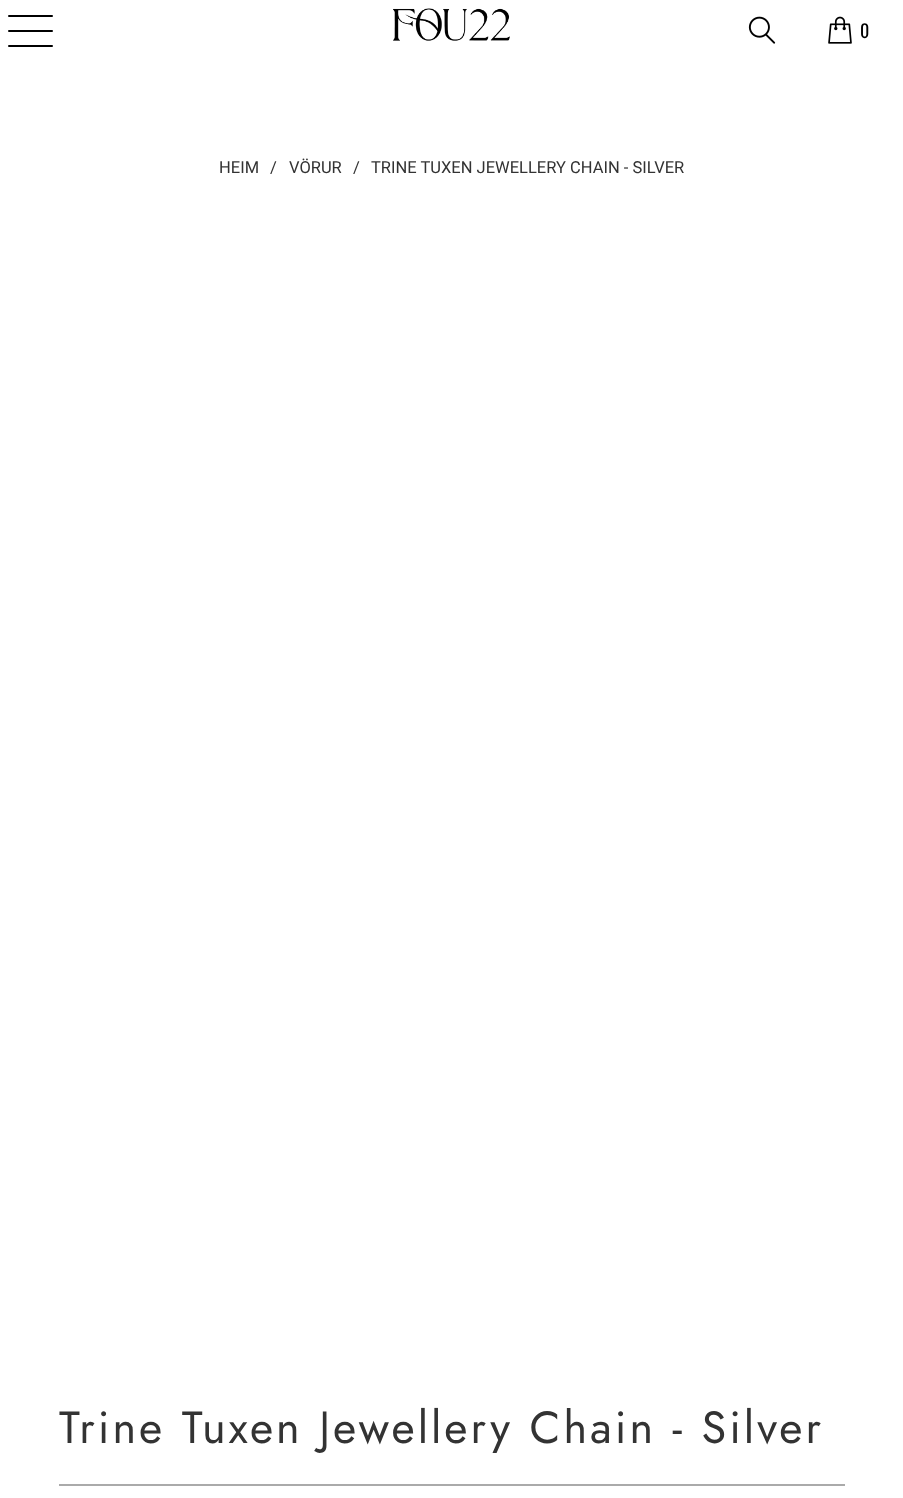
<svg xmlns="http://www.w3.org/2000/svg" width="903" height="1498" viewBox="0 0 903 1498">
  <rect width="100%" height="100%" fill="#ffffff"/>
  <rect x="8" y="15" width="45" height="2" rx="1" fill="#000000"/>
  <rect x="8" y="30" width="45" height="2" rx="1" fill="#000000"/>
  <rect x="8" y="45" width="45" height="2" rx="1" fill="#000000"/>
  <image x="393" y="8" width="117" height="33" href="img1.png"/>
  <image x="748" y="16" width="28" height="28" href="img2.png"/>
  <image x="828" y="16" width="24" height="28" href="img3.png"/>
  <text x="860" y="38" font-family="Oswald" font-size="18" letter-spacing="2" fill="#000000">0</text>
  <text x="219" y="173" font-family="Roboto" font-size="16.5" fill="#333333">HEIM</text>
  <text x="270" y="173" font-family="Roboto" font-size="16.5" fill="#333333">/</text>
  <text x="289" y="173" font-family="Roboto" font-size="16.5" fill="#333333">VÖRUR</text>
  <text x="353" y="173" font-family="Roboto" font-size="16.5" fill="#333333">/</text>
  <text x="371" y="173" font-family="Roboto" font-size="16.5" fill="#333333">TRINE TUXEN JEWELLERY CHAIN - SILVER</text>
  <text x="59" y="1443" font-family="Jost" font-size="45" letter-spacing="3" fill="#333333">Trine Tuxen Jewellery Chain - Silver</text>
  <rect x="59" y="1484" width="786" height="2" fill="#aaaaaa"/>
</svg>
